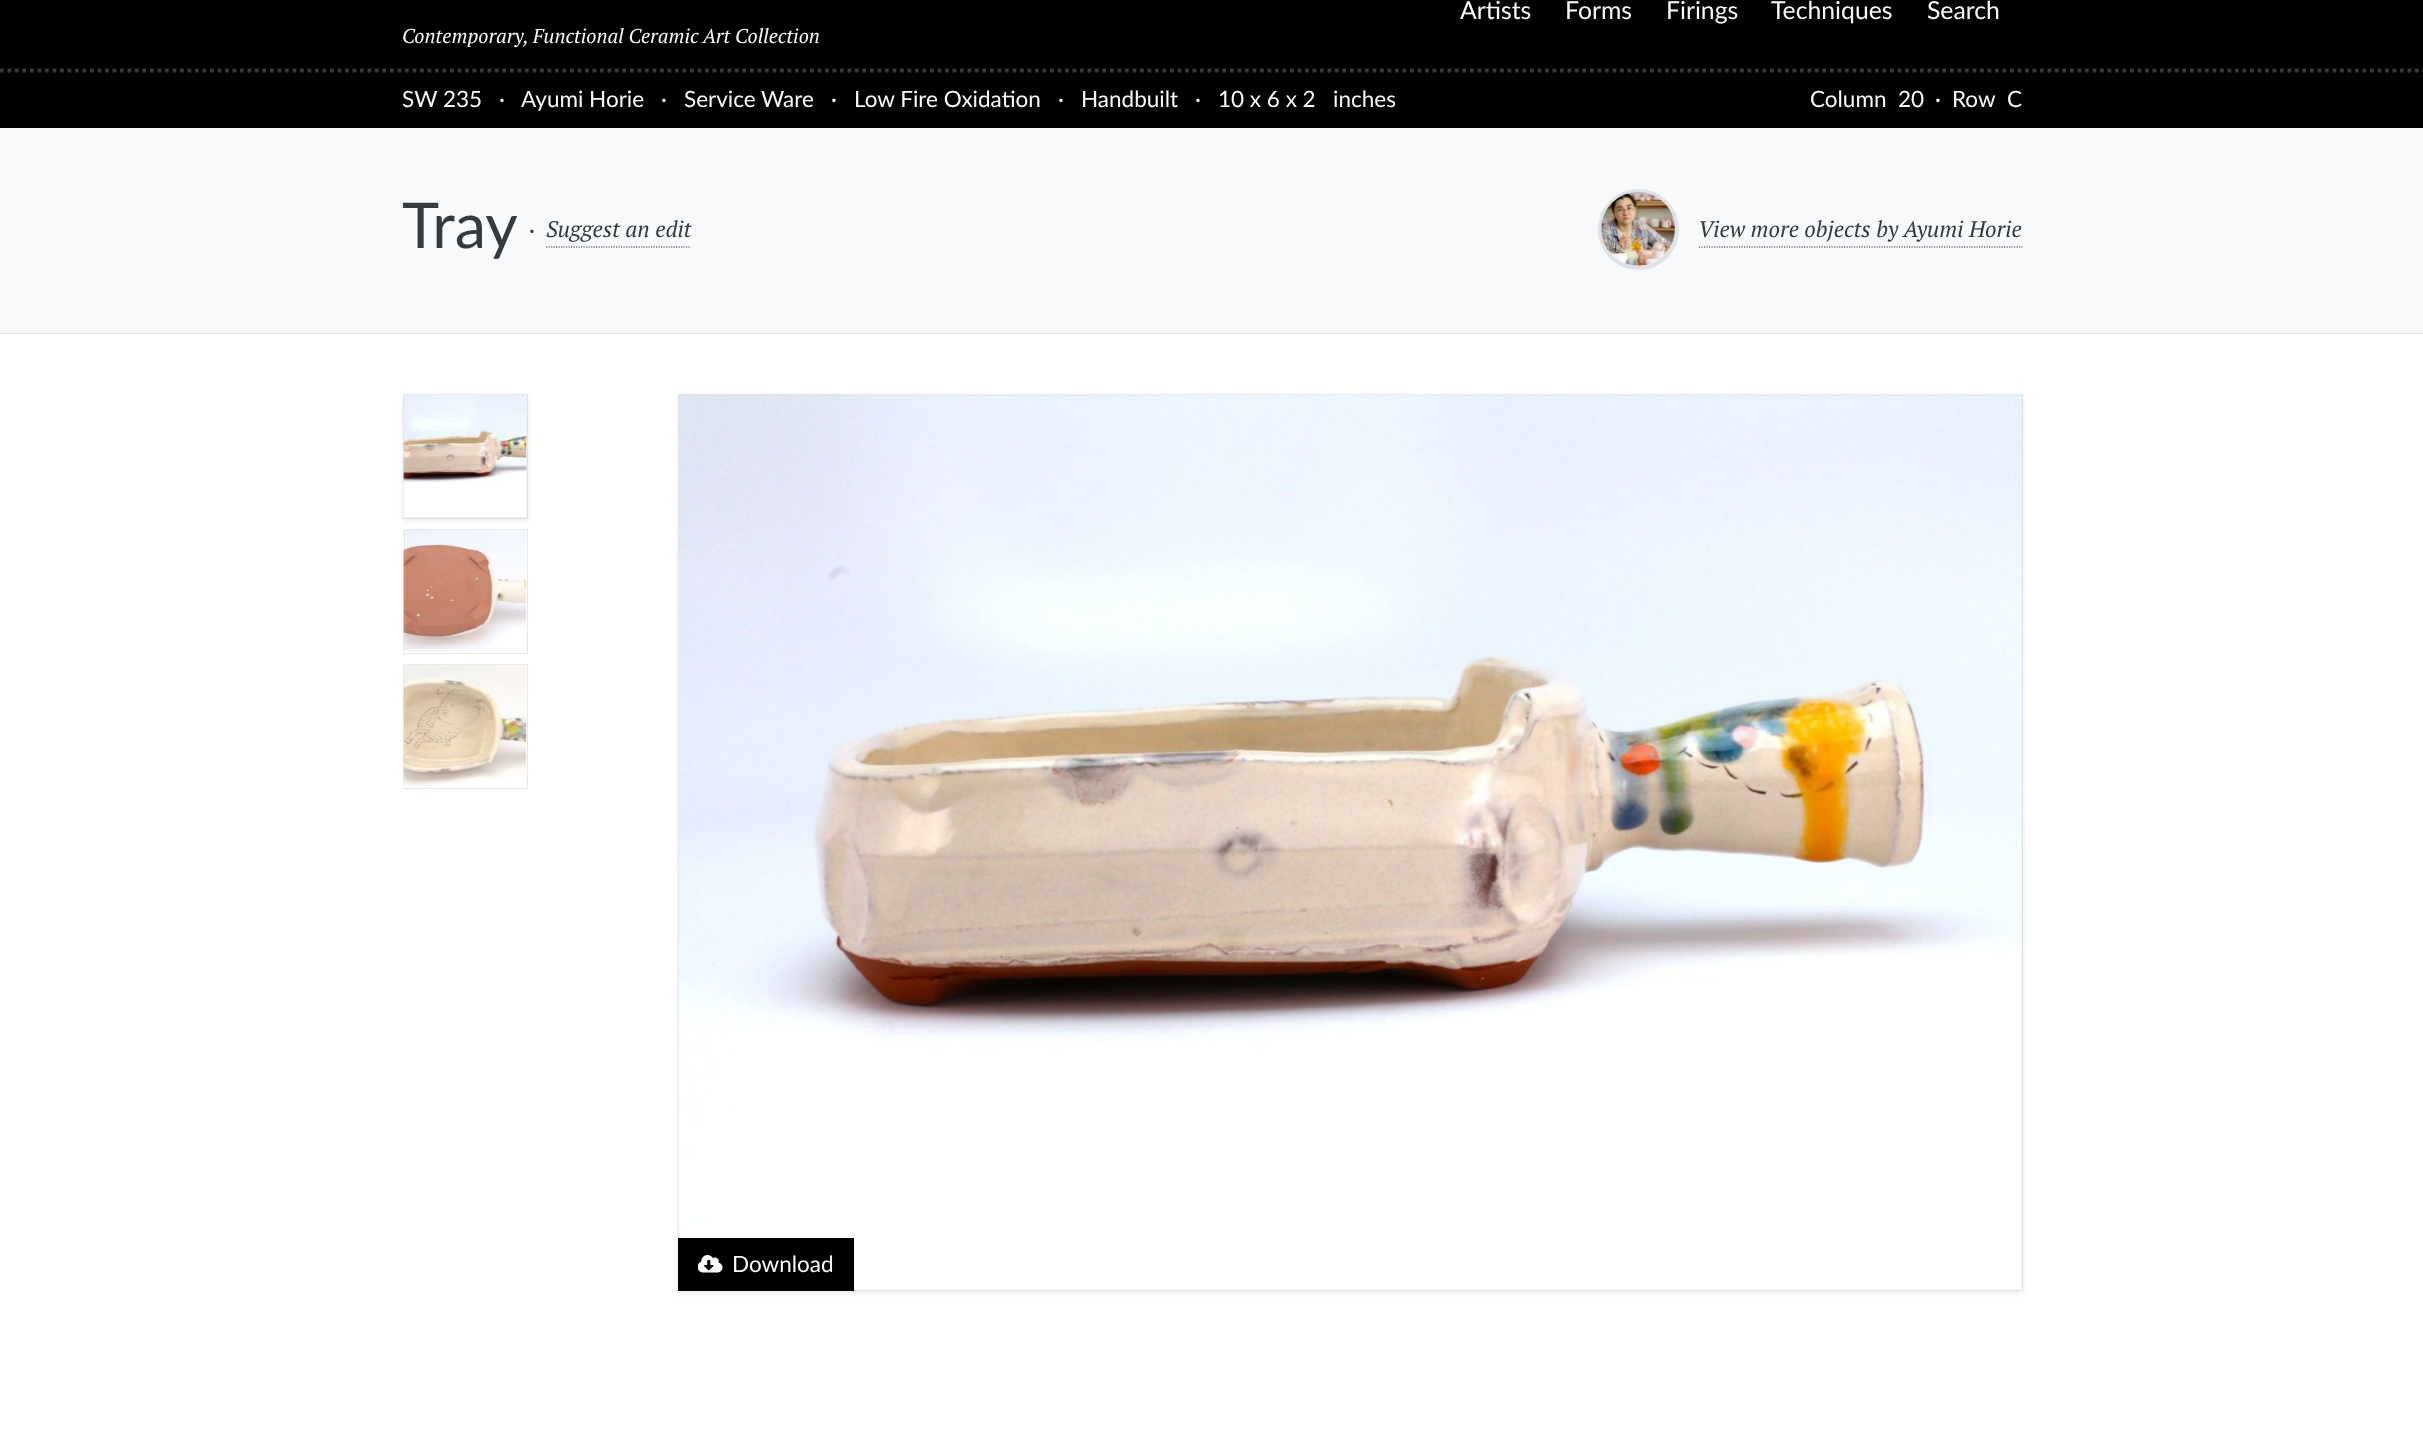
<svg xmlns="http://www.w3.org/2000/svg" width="2423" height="1431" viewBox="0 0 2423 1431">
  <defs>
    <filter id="blur1" x="-50%" y="-200%" width="200%" height="500%"><feGaussianBlur stdDeviation="2.5"/></filter>
  </defs>
  <rect width="100%" height="100%" fill="#ffffff"/>
  <rect x="0" y="0" width="2423" height="128" fill="#000000"/>
  <text x="1460" y="19" font-family="Lato" font-size="24.75" fill="#f8f9fa">Artists</text>
  <text x="1565" y="19" font-family="Lato" font-size="24.75" fill="#f8f9fa">Forms</text>
  <text x="1666" y="19" font-family="Lato" font-size="24.75" fill="#f8f9fa">Firings</text>
  <text x="1771" y="19" font-family="Lato" font-size="24.75" fill="#f8f9fa">Techniques</text>
  <text x="1927" y="19" font-family="Lato" font-size="24.75" fill="#f8f9fa">Search</text>
  <text x="402" y="43" font-family="PT Serif" font-size="20" font-style="italic" fill="#f8f9fa">Contemporary, Functional Ceramic Art Collection</text>
  <path d="M0 70.5H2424" fill="none" stroke="#343a40" stroke-width="3.8" stroke-dasharray="3.75 3.75"/>
  <text x="402" y="107" font-family="Lato" font-size="22.5" fill="#f8f9fa">SW 235</text>
  <text x="499" y="107" font-family="Lato" font-size="22.5" fill="#ffffff">·</text>
  <text x="521" y="107" font-family="Lato" font-size="22.5" fill="#f8f9fa">Ayumi Horie</text>
  <text x="661" y="107" font-family="Lato" font-size="22.5" fill="#ffffff">·</text>
  <text x="684" y="107" font-family="Lato" font-size="22.5" fill="#f8f9fa">Service Ware</text>
  <text x="831" y="107" font-family="Lato" font-size="22.5" fill="#ffffff">·</text>
  <text x="854" y="107" font-family="Lato" font-size="22.5" fill="#f8f9fa">Low Fire Oxidation</text>
  <text x="1058" y="107" font-family="Lato" font-size="22.5" fill="#ffffff">·</text>
  <text x="1081" y="107" font-family="Lato" font-size="22.5" fill="#f8f9fa">Handbuilt</text>
  <text x="1195" y="107" font-family="Lato" font-size="22.5" fill="#ffffff">·</text>
  <text x="1218" y="107" font-family="Lato" font-size="22.5" fill="#f8f9fa">10 x 6 x 2</text>
  <text x="1333" y="107" font-family="Lato" font-size="22.5" fill="#f8f9fa">inches</text>
  <text x="1810" y="107" font-family="Lato" font-size="22.5" fill="#f8f9fa">Column</text>
  <text x="1898" y="107" font-family="Lato" font-size="22.5" fill="#f8f9fa">20</text>
  <text x="1935" y="107" font-family="Lato" font-size="22.5" fill="#ffffff">·</text>
  <text x="1952" y="107" font-family="Lato" font-size="22.5" fill="#f8f9fa">Row</text>
  <text x="2007" y="107" font-family="Lato" font-size="22.5" fill="#f8f9fa">C</text>
  <rect x="0" y="128" width="2423" height="205" fill="#f8f9fa"/>
  <rect x="0" y="333" width="2423" height="1" fill="#dee2e6"/>
  <text x="402" y="248" font-family="Lato" font-size="63" fill="#343a40">Tray</text>
  <text x="529" y="238" font-family="Lato" font-size="22.5" fill="#343a40">·</text>
  <path d="M546 247H691" fill="none" stroke="#343a40" stroke-width="1.2" stroke-dasharray="1.25 1.25"/>
  <text x="546" y="237" font-family="PT Serif" font-size="22.5" font-style="italic" fill="#343a40">Suggest an edit</text>
  <circle cx="1638.5" cy="229.5" r="38.5" fill="none" stroke="#dee2e6" stroke-width="4"/>
  <image x="1601" y="192" width="74" height="74" href="img1.png"/>
  <path d="M1699 247H2022.5" fill="none" stroke="#343a40" stroke-width="1.2" stroke-dasharray="1.25 1.25"/>
  <text x="1698" y="237" font-family="PT Serif" font-size="22.5" font-style="italic" fill="#343a40">View more objects by Ayumi Horie</text>
  <rect x="403" y="396" width="125" height="125" fill="#000000" fill-opacity="0.07" filter="url(#blur1)"/>
  <rect x="403.5" y="394.5" width="124" height="124" fill="none" stroke="#dee2e6"/>
  <image x="403" y="394" width="124" height="123" href="img2.png"/>
  <rect x="403.5" y="529.5" width="124" height="124" fill="none" stroke="#e6e9ec"/>
  <image x="403" y="529" width="124" height="123" href="img3.png"/>
  <rect x="403.5" y="664.5" width="124" height="124" fill="none" stroke="#e6e9ec"/>
  <image x="403" y="664" width="124" height="123" href="img4.png"/>
  <rect x="678" y="396" width="1345" height="898" fill="#000000" fill-opacity="0.07" filter="url(#blur1)"/>
  <rect x="678.5" y="394.5" width="1344" height="896" fill="none" stroke="#dee2e6"/>
  <image x="678" y="394" width="1344" height="896" href="img5.png"/>
  <rect x="678" y="1238" width="176" height="53" fill="#000000"/>
  <image x="698" y="1255" width="25" height="18" href="img6.png"/>
  <text x="732" y="1272" font-family="Lato" font-size="22.5" fill="#f8f9fa">Download</text>
</svg>
